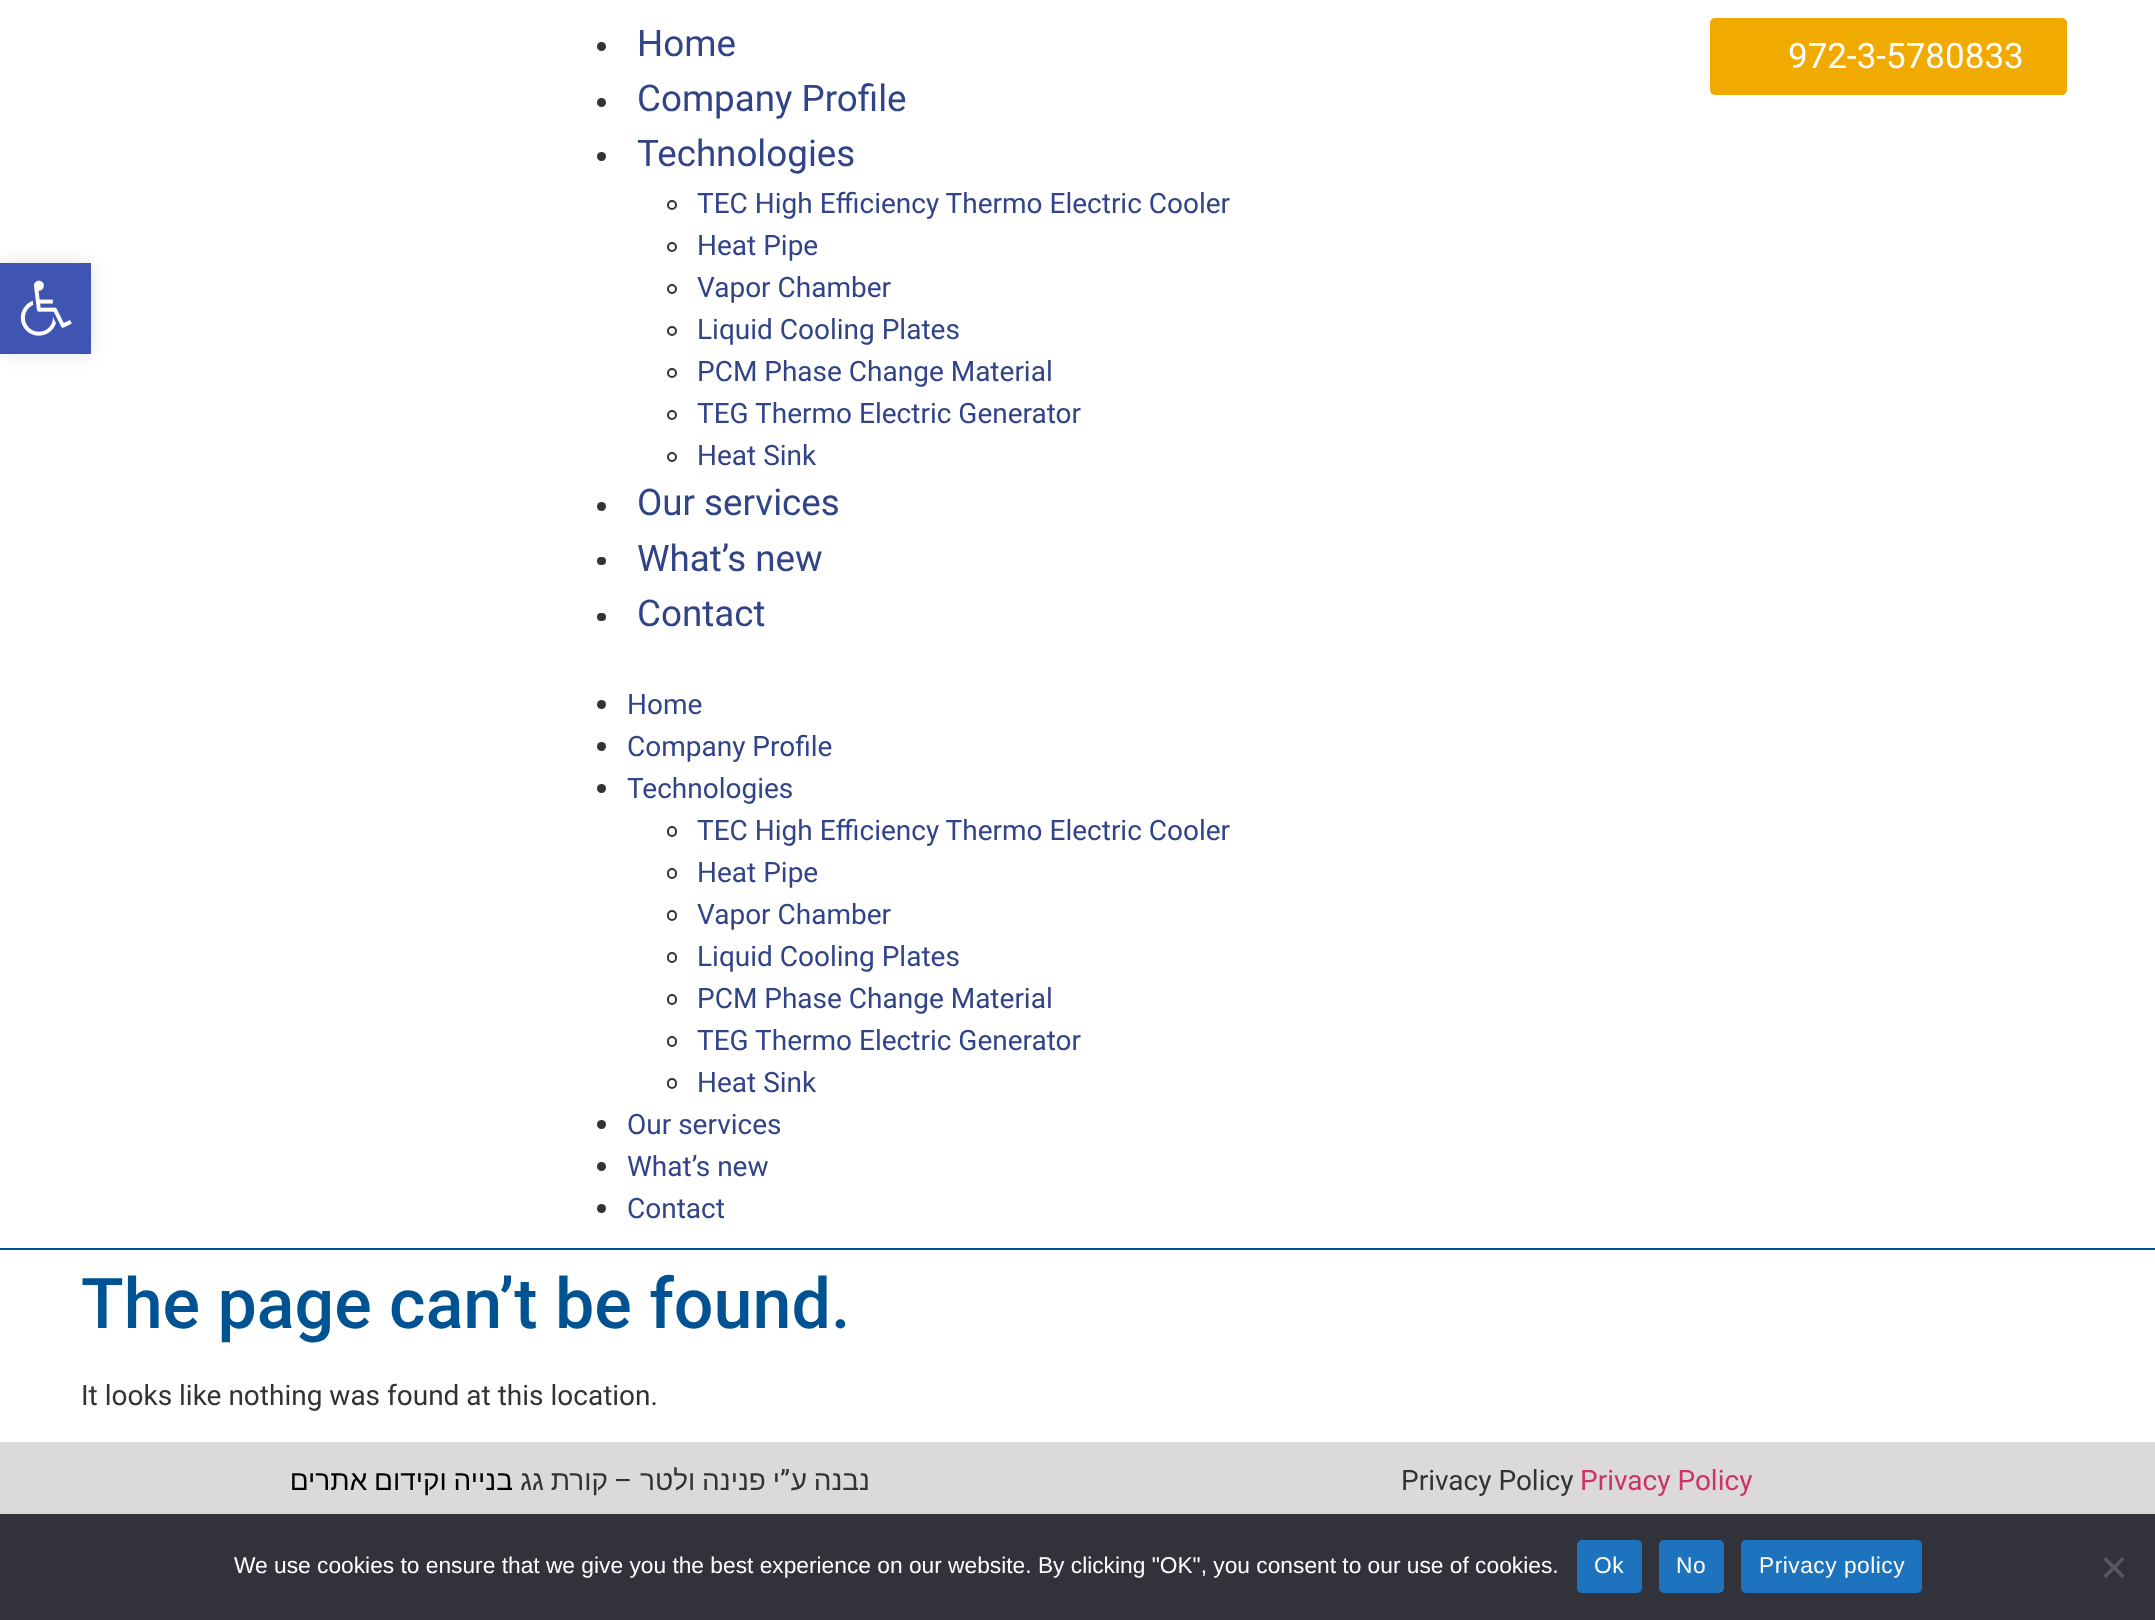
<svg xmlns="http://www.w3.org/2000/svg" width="2155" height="1620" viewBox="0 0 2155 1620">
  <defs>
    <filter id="blur1" x="-50%" y="-200%" width="200%" height="500%"><feGaussianBlur stdDeviation="9"/></filter>
  </defs>
  <rect width="100%" height="100%" fill="#ffffff"/>
  <rect x="0" y="263" width="91" height="91" fill="#000000" fill-opacity="0.1" filter="url(#blur1)"/>
  <rect x="0" y="263" width="91" height="91" fill="#4054b2"/>
  <image x="20" y="280" width="52" height="56" href="img1.png"/>
  <rect x="0" y="1248" width="2155" height="2" fill="#005393"/>
  <circle cx="601.5" cy="46.5" r="4.5" fill="#333333"/>
  <text x="637" y="56" font-family="Roboto" font-size="36.75" fill="#314488">Home</text>
  <circle cx="601.5" cy="102.5" r="4.5" fill="#333333"/>
  <text x="637" y="111" font-family="Roboto" font-size="36.75" fill="#314488">Company Profile</text>
  <circle cx="601.5" cy="156.5" r="4.5" fill="#333333"/>
  <text x="637" y="166" font-family="Roboto" font-size="36.75" fill="#314488">Technologies</text>
  <circle cx="672" cy="205" r="4" fill="none" stroke="#333333" stroke-width="2"/>
  <text x="697" y="213" font-family="Roboto" font-size="28" fill="#314488">TEC High Efficiency Thermo Electric Cooler</text>
  <circle cx="672" cy="247" r="4" fill="none" stroke="#333333" stroke-width="2"/>
  <text x="697" y="255" font-family="Roboto" font-size="28" fill="#314488">Heat Pipe</text>
  <circle cx="672" cy="289" r="4" fill="none" stroke="#333333" stroke-width="2"/>
  <text x="697" y="297" font-family="Roboto" font-size="28" fill="#314488">Vapor Chamber</text>
  <circle cx="672" cy="331" r="4" fill="none" stroke="#333333" stroke-width="2"/>
  <text x="697" y="339" font-family="Roboto" font-size="28" fill="#314488">Liquid Cooling Plates</text>
  <circle cx="672" cy="373" r="4" fill="none" stroke="#333333" stroke-width="2"/>
  <text x="697" y="381" font-family="Roboto" font-size="28" fill="#314488">PCM Phase Change Material</text>
  <circle cx="672" cy="415" r="4" fill="none" stroke="#333333" stroke-width="2"/>
  <text x="697" y="423" font-family="Roboto" font-size="28" fill="#314488">TEG Thermo Electric Generator</text>
  <circle cx="672" cy="457" r="4" fill="none" stroke="#333333" stroke-width="2"/>
  <text x="697" y="465" font-family="Roboto" font-size="28" fill="#314488">Heat Sink</text>
  <circle cx="601.5" cy="506.5" r="4.5" fill="#333333"/>
  <text x="637" y="515" font-family="Roboto" font-size="36.75" fill="#314488">Our services</text>
  <rect x="597" y="557" width="9" height="8" rx="4" fill="#333333"/>
  <text x="637" y="571" font-family="Roboto" font-size="36.75" fill="#314488">What’s new</text>
  <rect x="597" y="613" width="9" height="8" rx="4" fill="#333333"/>
  <text x="637" y="626" font-family="Roboto" font-size="36.75" fill="#314488">Contact</text>
  <circle cx="601.5" cy="704.5" r="4.5" fill="#333333"/>
  <text x="627" y="714" font-family="Roboto" font-size="28" fill="#314488">Home</text>
  <circle cx="601.5" cy="746.5" r="4.5" fill="#333333"/>
  <text x="627" y="756" font-family="Roboto" font-size="28" fill="#314488">Company Profile</text>
  <circle cx="601.5" cy="788.5" r="4.5" fill="#333333"/>
  <text x="627" y="798" font-family="Roboto" font-size="28" fill="#314488">Technologies</text>
  <rect x="668" y="827" width="8" height="9" rx="4" fill="none" stroke="#333333" stroke-width="2"/>
  <text x="697" y="840" font-family="Roboto" font-size="28" fill="#314488">TEC High Efficiency Thermo Electric Cooler</text>
  <rect x="668" y="869" width="8" height="9" rx="4" fill="none" stroke="#333333" stroke-width="2"/>
  <text x="697" y="882" font-family="Roboto" font-size="28" fill="#314488">Heat Pipe</text>
  <rect x="668" y="911" width="8" height="9" rx="4" fill="none" stroke="#333333" stroke-width="2"/>
  <text x="697" y="924" font-family="Roboto" font-size="28" fill="#314488">Vapor Chamber</text>
  <rect x="668" y="953" width="8" height="9" rx="4" fill="none" stroke="#333333" stroke-width="2"/>
  <text x="697" y="966" font-family="Roboto" font-size="28" fill="#314488">Liquid Cooling Plates</text>
  <rect x="668" y="995" width="8" height="9" rx="4" fill="none" stroke="#333333" stroke-width="2"/>
  <text x="697" y="1008" font-family="Roboto" font-size="28" fill="#314488">PCM Phase Change Material</text>
  <rect x="668" y="1037" width="8" height="9" rx="4" fill="none" stroke="#333333" stroke-width="2"/>
  <text x="697" y="1050" font-family="Roboto" font-size="28" fill="#314488">TEG Thermo Electric Generator</text>
  <rect x="668" y="1079" width="8" height="9" rx="4" fill="none" stroke="#333333" stroke-width="2"/>
  <text x="697" y="1092" font-family="Roboto" font-size="28" fill="#314488">Heat Sink</text>
  <circle cx="601.5" cy="1124.5" r="4.5" fill="#333333"/>
  <text x="627" y="1134" font-family="Roboto" font-size="28" fill="#314488">Our services</text>
  <circle cx="601.5" cy="1166.5" r="4.5" fill="#333333"/>
  <text x="627" y="1176" font-family="Roboto" font-size="28" fill="#314488">What’s new</text>
  <circle cx="601.5" cy="1208.5" r="4.5" fill="#333333"/>
  <text x="627" y="1218" font-family="Roboto" font-size="28" fill="#314488">Contact</text>
  <rect x="1710" y="18" width="357" height="77" rx="5" fill="#f1ab00"/>
  <text x="1788" y="68" font-family="Roboto" font-size="35" fill="#ffffff">972-3-5780833</text>
  <text x="81" y="1328" font-family="Roboto" font-size="70" font-weight="500" fill="#005393">The page can’t be found.</text>
  <text x="81" y="1405" font-family="Roboto" font-size="28" fill="#333333">It looks like nothing was found at this location.</text>
  <rect x="0" y="1442" width="2155" height="72" fill="#dcd9d9"/>
  <text x="513" y="1490" word-spacing="-1" font-family="Liberation Sans" font-size="28" direction="rtl" fill="#000000">בנייה וקידום אתרים</text>
  <text x="608" y="1490" word-spacing="-1" font-family="Liberation Sans" font-size="28" direction="rtl" fill="#333333">קורת גג</text>
  <text x="632" y="1490" font-family="Roboto" font-size="28" direction="rtl" fill="#333333">–</text>
  <text x="780" y="1490" word-spacing="-1" font-family="Liberation Sans" font-size="28" direction="rtl" fill="#333333">י פנינה ולטר</text>
  <text x="790" y="1490" font-family="Roboto" font-size="28" direction="rtl" fill="#333333">”</text>
  <text x="870" y="1490" word-spacing="-1" font-family="Liberation Sans" font-size="28" direction="rtl" fill="#333333">נבנה ע</text>
  <text x="1401" y="1490" font-family="Roboto" font-size="28" fill="#333333">Privacy Policy</text>
  <text x="1580" y="1490" font-family="Roboto" font-size="28" fill="#cc3366">Privacy Policy</text>
  <rect x="0" y="1514" width="2155" height="106" fill="#32323a"/>
  <text x="234" y="1573" font-family="Liberation Sans" font-size="22.75" fill="#ffffff">We use cookies to ensure that we give you the best experience on our website. By clicking "OK", you consent to our use of cookies.</text>
  <rect x="1577" y="1540" width="65" height="53" rx="5" fill="#1e73be"/>
  <text x="1594" y="1573" font-family="Liberation Sans" font-size="22.75" letter-spacing="0.5" fill="#ffffff">Ok</text>
  <rect x="1659" y="1540" width="65" height="53" rx="5" fill="#1e73be"/>
  <text x="1676" y="1573" font-family="Liberation Sans" font-size="22.75" letter-spacing="0.5" fill="#ffffff">No</text>
  <rect x="1741" y="1540" width="181" height="53" rx="5" fill="#1e73be"/>
  <text x="1759" y="1573" font-family="Liberation Sans" font-size="22.75" letter-spacing="0.5" fill="#ffffff">Privacy policy</text>
  <path d="M2122 1557L2124.5 1559.5L2106 1578L2103.5 1575.5Z" fill="#59595d"/>
  <path d="M2103.5 1559.5L2106 1557L2124.5 1575.5L2122 1578Z" fill="#59595d"/>
</svg>
